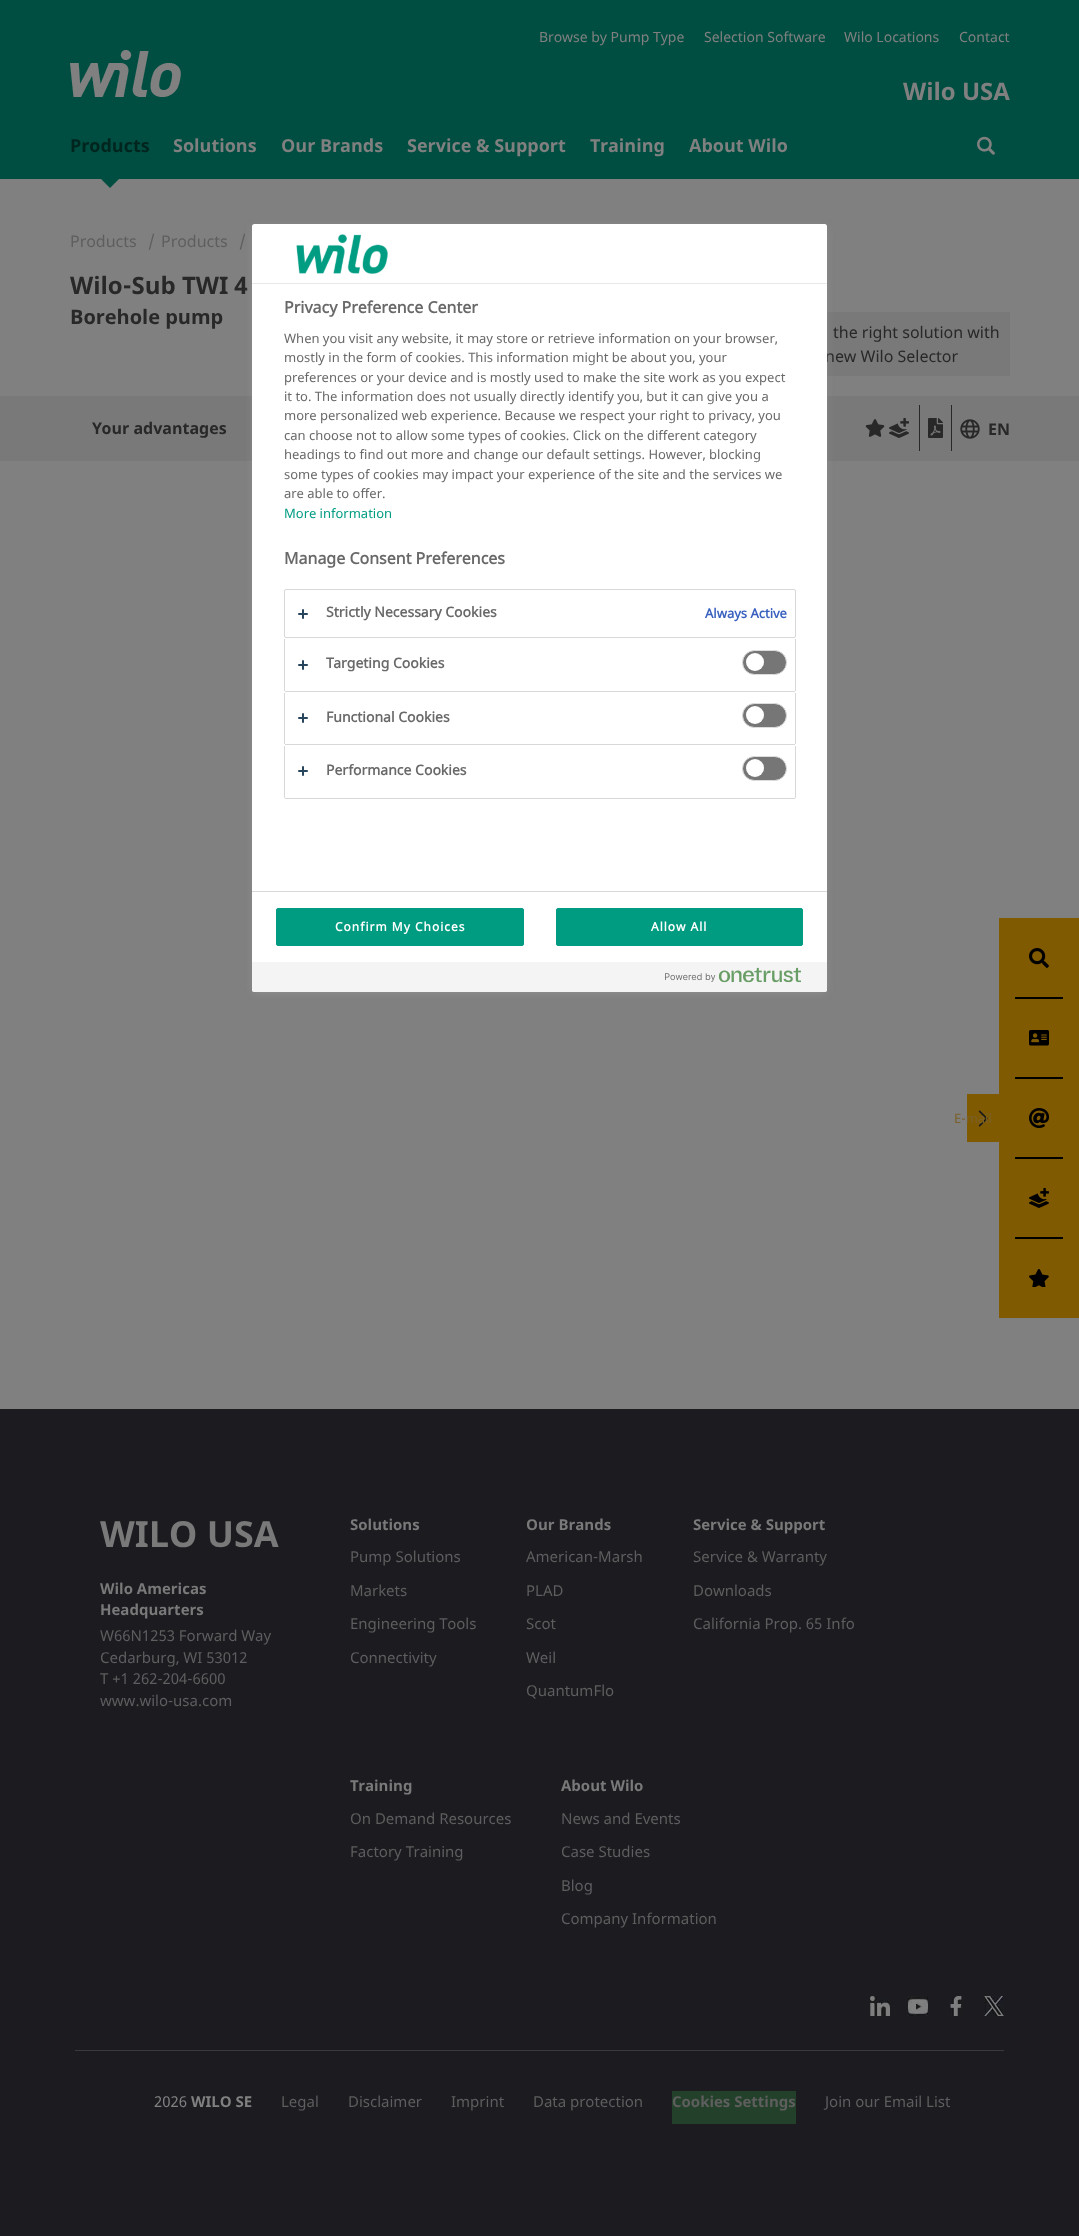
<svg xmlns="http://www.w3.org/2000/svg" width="1079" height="2236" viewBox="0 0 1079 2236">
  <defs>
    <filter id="blur1" x="-50%" y="-200%" width="200%" height="500%"><feGaussianBlur stdDeviation="5"/></filter>
  </defs>
  <rect width="100%" height="100%" fill="#808080"/>
  <rect x="0" y="0" width="1079" height="179" fill="#004e41"/>
  <image x="70" y="50" width="111" height="47" href="img1.png"/>
  <text x="539" y="42" font-family="Noto Sans" font-size="14" fill="#808080">Browse by Pump Type</text>
  <text x="704" y="42" font-family="Noto Sans" font-size="14" fill="#808080">Selection Software</text>
  <text x="844" y="42" font-family="Noto Sans" font-size="14" fill="#808080">Wilo Locations</text>
  <text x="959" y="42" font-family="Noto Sans" font-size="14" fill="#808080">Contact</text>
  <text x="903" y="100" font-family="Noto Sans" font-size="24" font-weight="bold" fill="#808080">Wilo USA</text>
  <text x="70" y="152" font-family="Noto Sans" font-size="18" font-weight="bold" fill="#00251f">Products</text>
  <path d="M101 179H119L110 188Z" fill="#004e41"/>
  <text x="173" y="152" font-family="Noto Sans" font-size="18" font-weight="bold" fill="#808080">Solutions</text>
  <text x="281" y="152" font-family="Noto Sans" font-size="18" font-weight="bold" fill="#808080">Our Brands</text>
  <text x="407" y="152" font-family="Noto Sans" font-size="18" font-weight="bold" fill="#808080">Service &amp; Support</text>
  <text x="590" y="152" font-family="Noto Sans" font-size="18" font-weight="bold" fill="#808080">Training</text>
  <text x="689" y="152" font-family="Noto Sans" font-size="18" font-weight="bold" fill="#808080">About Wilo</text>
  <image x="977" y="136" width="18" height="19" href="img2.png"/>
  <text x="70" y="247" font-family="Noto Sans" font-size="16" fill="#5e5e5e">Products</text>
  <text x="148" y="247" font-family="Noto Sans" font-size="16" fill="#5e5e5e">/</text>
  <text x="161" y="247" font-family="Noto Sans" font-size="16" fill="#5e5e5e">Products</text>
  <text x="239" y="247" font-family="Noto Sans" font-size="16" fill="#5e5e5e">/</text>
  <text x="70" y="294" font-family="Noto Sans" font-size="24" font-weight="bold" fill="#282828">Wilo-Sub TWI 4</text>
  <text x="70" y="324" font-family="Noto Sans" font-size="20" font-weight="bold" fill="#282828">Borehole pump</text>
  <rect x="827" y="312" width="183" height="64" fill="#797979"/>
  <text x="833" y="338" font-family="Noto Sans" font-size="16" fill="#282828">the right solution with</text>
  <text x="825" y="362" font-family="Noto Sans" font-size="16" fill="#282828">new Wilo Selector</text>
  <rect x="0" y="396" width="1079" height="65" fill="#797979"/>
  <text x="92" y="434" font-family="Noto Sans" font-size="16" font-weight="bold" fill="#282828">Your advantages</text>
  <image x="865" y="419" width="20" height="18" href="img3.png"/>
  <image x="889" y="418" width="20" height="20" href="img4.png"/>
  <rect x="919" y="405" width="1" height="46" fill="#282828"/>
  <image x="928" y="418" width="15" height="20" href="img5.png"/>
  <rect x="951" y="405" width="1" height="46" fill="#282828"/>
  <image x="960" y="419" width="20" height="20" href="img6.png"/>
  <text x="988" y="435" font-family="Noto Sans" font-size="16" font-weight="bold" fill="#282828">EN</text>
  <rect x="0" y="1409" width="1079" height="827" fill="#1b1b20"/>
  <text x="100" y="1547" font-family="Noto Sans" font-size="36" font-weight="bold" fill="#797979">WILO USA</text>
  <text x="100" y="1594" font-family="Noto Sans" font-size="15" font-weight="bold" fill="#797979">Wilo Americas</text>
  <text x="100" y="1615" font-family="Noto Sans" font-size="15" font-weight="bold" fill="#797979">Headquarters</text>
  <text x="100" y="1641" font-family="Noto Sans" font-size="15" fill="#5e5e5e">W66N1253 Forward Way</text>
  <text x="100" y="1663" font-family="Noto Sans" font-size="15" fill="#5e5e5e">Cedarburg, WI 53012</text>
  <text x="100" y="1684" font-family="Noto Sans" font-size="15" fill="#5e5e5e">T +1 262-204-6600</text>
  <text x="100" y="1706" font-family="Noto Sans" font-size="15" fill="#5e5e5e">www.wilo-usa.com</text>
  <text x="350" y="1530" font-family="Noto Sans" font-size="15" font-weight="bold" fill="#797979">Solutions</text>
  <text x="350" y="1562" font-family="Noto Sans" font-size="15" fill="#5e5e5e">Pump Solutions</text>
  <text x="350" y="1596" font-family="Noto Sans" font-size="15" fill="#5e5e5e">Markets</text>
  <text x="350" y="1629" font-family="Noto Sans" font-size="15" fill="#5e5e5e">Engineering Tools</text>
  <text x="350" y="1663" font-family="Noto Sans" font-size="15" fill="#5e5e5e">Connectivity</text>
  <text x="526" y="1530" font-family="Noto Sans" font-size="15" font-weight="bold" fill="#797979">Our Brands</text>
  <text x="526" y="1562" font-family="Noto Sans" font-size="15" fill="#5e5e5e">American-Marsh</text>
  <text x="526" y="1596" font-family="Noto Sans" font-size="15" fill="#5e5e5e">PLAD</text>
  <text x="526" y="1629" font-family="Noto Sans" font-size="15" fill="#5e5e5e">Scot</text>
  <text x="526" y="1663" font-family="Noto Sans" font-size="15" fill="#5e5e5e">Weil</text>
  <text x="526" y="1696" font-family="Noto Sans" font-size="15" fill="#5e5e5e">QuantumFlo</text>
  <text x="693" y="1530" font-family="Noto Sans" font-size="15" font-weight="bold" fill="#797979">Service &amp; Support</text>
  <text x="693" y="1562" font-family="Noto Sans" font-size="15" fill="#5e5e5e">Service &amp; Warranty</text>
  <text x="693" y="1596" font-family="Noto Sans" font-size="15" fill="#5e5e5e">Downloads</text>
  <text x="693" y="1629" font-family="Noto Sans" font-size="15" fill="#5e5e5e">California Prop. 65 Info</text>
  <text x="350" y="1791" font-family="Noto Sans" font-size="15" font-weight="bold" fill="#797979">Training</text>
  <text x="350" y="1824" font-family="Noto Sans" font-size="15" fill="#5e5e5e">On Demand Resources</text>
  <text x="350" y="1857" font-family="Noto Sans" font-size="15" fill="#5e5e5e">Factory Training</text>
  <text x="561" y="1791" font-family="Noto Sans" font-size="15" font-weight="bold" fill="#797979">About Wilo</text>
  <text x="561" y="1824" font-family="Noto Sans" font-size="15" fill="#5e5e5e">News and Events</text>
  <text x="561" y="1857" font-family="Noto Sans" font-size="15" fill="#5e5e5e">Case Studies</text>
  <text x="561" y="1891" font-family="Noto Sans" font-size="15" fill="#5e5e5e">Blog</text>
  <text x="561" y="1924" font-family="Noto Sans" font-size="15" fill="#5e5e5e">Company Information</text>
  <image x="870" y="1996" width="20" height="20" href="img7.png"/>
  <image x="908" y="1996" width="20" height="20" href="img8.png"/>
  <image x="950" y="1996" width="14" height="20" href="img9.png"/>
  <image x="984" y="1996" width="20" height="20" href="img10.png"/>
  <rect x="75" y="2050" width="929" height="1" fill="#3a3a3d"/>
  <text x="154" y="2107" font-family="Noto Sans" font-size="15" fill="#808080">2026</text>
  <text x="191" y="2107" font-family="Noto Sans" font-size="15" font-weight="bold" fill="#808080">WILO SE</text>
  <text x="281" y="2107" font-family="Noto Sans" font-size="15" fill="#5e5e5e">Legal</text>
  <text x="348" y="2107" font-family="Noto Sans" font-size="15" fill="#5e5e5e">Disclaimer</text>
  <text x="451" y="2107" font-family="Noto Sans" font-size="15" fill="#5e5e5e">Imprint</text>
  <text x="533" y="2107" font-family="Noto Sans" font-size="15" fill="#5e5e5e">Data protection</text>
  <rect x="672" y="2091" width="124" height="33" fill="#23412a"/>
  <text x="672" y="2107" font-family="Noto Sans" font-size="15" font-weight="bold" fill="#5e5e5e">Cookies Settings</text>
  <text x="825" y="2107" font-family="Noto Sans" font-size="15" fill="#5e5e5e">Join our Email List</text>
  <rect x="999" y="918" width="80" height="400" fill="#805a00"/>
  <rect x="967" y="1094" width="32" height="48" fill="#805a00"/>
  <image x="978" y="1110" width="10" height="17" href="img11.png"/>
  <image x="1029" y="948" width="20" height="20" href="img12.png"/>
  <rect x="1015" y="997" width="48" height="2" fill="#000000"/>
  <image x="1029" y="1030" width="20" height="16" href="img13.png"/>
  <rect x="1015" y="1077" width="48" height="2" fill="#000000"/>
  <text x="954" y="1123" font-family="Noto Sans" font-size="13" fill="#796129">E-mail</text>
  <image x="1029" y="1108" width="20" height="20" href="img14.png"/>
  <rect x="1015" y="1157" width="48" height="2" fill="#000000"/>
  <image x="1029" y="1188" width="20" height="20" href="img15.png"/>
  <rect x="1015" y="1237" width="48" height="2" fill="#000000"/>
  <image x="1029" y="1269" width="20" height="18" href="img16.png"/>
  <rect x="255" y="229" width="569" height="762" fill="#999999" filter="url(#blur1)"/>
  <rect x="252" y="224" width="575" height="768" rx="2.5" fill="#ffffff"/>
  <rect x="252" y="283" width="575" height="1" fill="#e9e9e9"/>
  <image x="296" y="234" width="92" height="40" href="img17.png"/>
  <text x="284" y="313" font-family="'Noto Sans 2'" font-size="16" font-weight="bold" fill="#696969">Privacy Preference Center</text>
  <text x="284" y="343" font-family="Noto Sans" font-size="13" fill="#696969">When you visit any website, it may store or retrieve information on your browser,</text>
  <text x="284" y="362" font-family="Noto Sans" font-size="13" fill="#696969">mostly in the form of cookies. This information might be about you, your</text>
  <text x="284" y="382" font-family="Noto Sans" font-size="13" fill="#696969">preferences or your device and is mostly used to make the site work as you expect</text>
  <text x="284" y="401" font-family="Noto Sans" font-size="13" fill="#696969">it to. The information does not usually directly identify you, but it can give you a</text>
  <text x="284" y="420" font-family="Noto Sans" font-size="13" fill="#696969">more personalized web experience. Because we respect your right to privacy, you</text>
  <text x="284" y="440" font-family="Noto Sans" font-size="13" fill="#696969">can choose not to allow some types of cookies. Click on the different category</text>
  <text x="284" y="459" font-family="Noto Sans" font-size="13" fill="#696969">headings to find out more and change our default settings. However, blocking</text>
  <text x="284" y="479" font-family="Noto Sans" font-size="13" fill="#696969">some types of cookies may impact your experience of the site and the services we</text>
  <text x="284" y="498" font-family="Noto Sans" font-size="13" fill="#696969">are able to offer.</text>
  <text x="284" y="518" font-family="Noto Sans" font-size="13" fill="#009c82">More information</text>
  <text x="284" y="564" font-family="'Noto Sans 2'" font-size="16" font-weight="bold" fill="#696969">Manage Consent Preferences</text>
  <rect x="284.5" y="589.5" width="511" height="48" rx="1.5" fill="none" stroke="#d8d8d8"/>
  <rect x="302" y="609" width="2" height="10" rx="1" fill="#27455c"/>
  <rect x="298" y="613" width="10" height="2" rx="1" fill="#27455c"/>
  <text x="326" y="617" font-family="'Noto Sans 2'" font-size="14" font-weight="bold" fill="#696969">Strictly Necessary Cookies</text>
  <text x="705" y="618" font-family="'Noto Sans 2'" font-size="13" font-weight="bold" fill="#3860be">Always Active</text>
  <rect x="795" y="639" width="1" height="52" fill="#d8d8d8"/>
  <rect x="285" y="691" width="510" height="1" fill="#d8d8d8"/>
  <rect x="284" y="639" width="1" height="52" fill="#d8d8d8"/>
  <rect x="302" y="660" width="2" height="10" rx="1" fill="#27455c"/>
  <rect x="298" y="664" width="10" height="2" rx="1" fill="#27455c"/>
  <text x="326" y="668" font-family="'Noto Sans 2'" font-size="14" font-weight="bold" fill="#696969">Targeting Cookies</text>
  <rect x="742.5" y="650.5" width="44" height="24" rx="12" fill="#767676" stroke="#dddddd"/>
  <circle cx="755" cy="662" r="9" fill="#ffffff"/>
  <rect x="795" y="693" width="1" height="51" fill="#d8d8d8"/>
  <rect x="285" y="744" width="510" height="1" fill="#d8d8d8"/>
  <rect x="284" y="693" width="1" height="51" fill="#d8d8d8"/>
  <rect x="302" y="713" width="2" height="10" rx="1" fill="#27455c"/>
  <rect x="298" y="717" width="10" height="2" rx="1" fill="#27455c"/>
  <text x="326" y="722" font-family="'Noto Sans 2'" font-size="14" font-weight="bold" fill="#696969">Functional Cookies</text>
  <rect x="742.5" y="703.5" width="44" height="24" rx="12" fill="#767676" stroke="#dddddd"/>
  <circle cx="755" cy="715" r="9" fill="#ffffff"/>
  <rect x="795" y="746" width="1" height="52" fill="#d8d8d8"/>
  <rect x="285" y="798" width="510" height="1" fill="#d8d8d8"/>
  <rect x="284" y="746" width="1" height="52" fill="#d8d8d8"/>
  <rect x="302" y="766" width="2" height="10" rx="1" fill="#27455c"/>
  <rect x="298" y="770" width="10" height="2" rx="1" fill="#27455c"/>
  <text x="326" y="775" font-family="'Noto Sans 2'" font-size="14" font-weight="bold" fill="#696969">Performance Cookies</text>
  <rect x="742.5" y="756.5" width="44" height="24" rx="12" fill="#767676" stroke="#dddddd"/>
  <circle cx="755" cy="768" r="9" fill="#ffffff"/>
  <rect x="252" y="891" width="575" height="1" fill="#d8d8d8"/>
  <rect x="276.5" y="908.5" width="247" height="37" rx="1.5" fill="#009c82" stroke="#009c82"/>
  <text x="335" y="931" font-family="'Noto Sans 2'" font-size="12" font-weight="bold" letter-spacing="1" fill="#ffffff">Confirm My Choices</text>
  <rect x="556.5" y="908.5" width="246" height="37" rx="1.5" fill="#009c82" stroke="#009c82"/>
  <text x="651" y="931" font-family="'Noto Sans 2'" font-size="12" font-weight="bold" letter-spacing="1" fill="#ffffff">Allow All</text>
  <path d="M252 962H827V989.5C827 991 826 992 824.5 992H254.5C253 992 252 991 252 989.5Z" fill="#f4f4f4"/>
  <image x="665" y="967" width="136" height="16" href="img18.png"/>
</svg>
